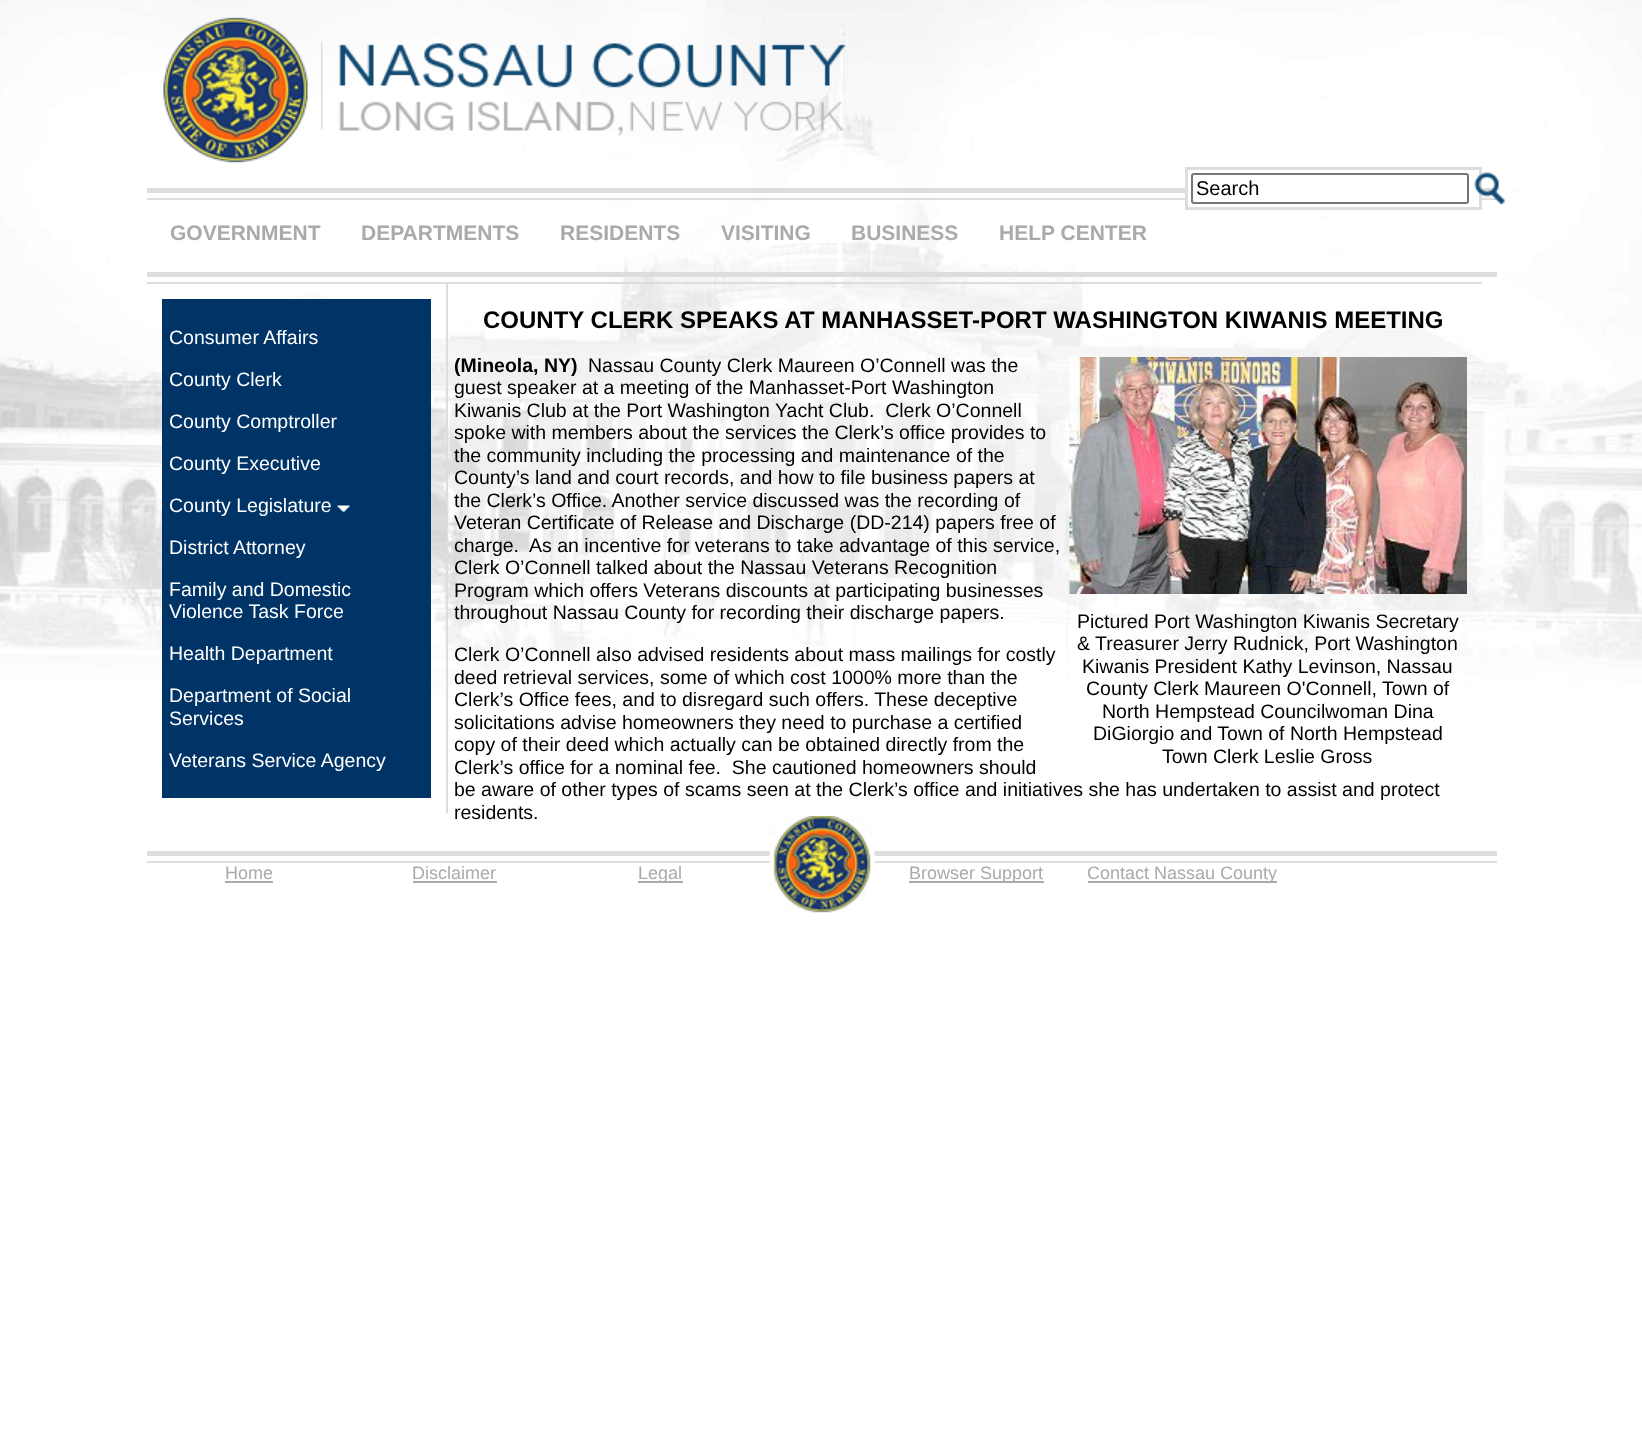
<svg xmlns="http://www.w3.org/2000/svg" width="1642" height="1451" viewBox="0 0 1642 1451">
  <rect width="100%" height="100%" fill="#ffffff"/>
  <image x="0" y="0" width="1642" height="698" href="img1.png"/>
  <rect x="147" y="188" width="1350" height="5" fill="#dddddd"/>
  <image x="163" y="17" width="684" height="146" href="img2.png"/>
  <rect x="147" y="198" width="1350" height="2" fill="#dddddd"/>
  <rect x="147" y="272" width="1350" height="5" fill="#dddddd"/>
  <rect x="1188" y="188" width="291" height="12" fill="#ffffff"/>
  <rect x="1186.5" y="168.5" width="294" height="40" fill="none" stroke="#dddddd" stroke-width="3"/>
  <rect x="1192" y="174" width="276" height="29" rx="2" fill="none" stroke="#767676" stroke-width="2"/>
  <text x="1196" y="195" font-family="Liberation Sans" font-size="20" fill="#000000">Search</text>
  <image x="1474" y="172" width="31" height="32" href="img3.png"/>
  <text x="170" y="240" font-family="Liberation Sans" font-size="21" font-weight="bold" fill="#aaaaaa">GOVERNMENT</text>
  <text x="361" y="240" font-family="Liberation Sans" font-size="21" font-weight="bold" fill="#aaaaaa">DEPARTMENTS</text>
  <text x="560" y="240" font-family="Liberation Sans" font-size="21" font-weight="bold" fill="#aaaaaa">RESIDENTS</text>
  <text x="721" y="240" font-family="Liberation Sans" font-size="21" font-weight="bold" fill="#aaaaaa">VISITING</text>
  <text x="851" y="240" font-family="Liberation Sans" font-size="21" font-weight="bold" fill="#aaaaaa">BUSINESS</text>
  <text x="999" y="240" font-family="Liberation Sans" font-size="21" font-weight="bold" fill="#aaaaaa">HELP CENTER</text>
  <rect x="147" y="282" width="300" height="2" fill="#dddddd"/>
  <rect x="446" y="282" width="2" height="531" fill="#dddddd"/>
  <rect x="162" y="299" width="269" height="499" fill="#003366"/>
  <text x="169" y="344" font-family="Liberation Sans" font-size="19.5" fill="#ffffff">Consumer Affairs</text>
  <text x="169" y="386" font-family="Liberation Sans" font-size="19.5" fill="#ffffff">County Clerk</text>
  <text x="169" y="428" font-family="Liberation Sans" font-size="19.5" fill="#ffffff">County Comptroller</text>
  <text x="169" y="470" font-family="Liberation Sans" font-size="19.5" fill="#ffffff">County Executive</text>
  <text x="169" y="512" font-family="Liberation Sans" font-size="19.5" fill="#ffffff">County Legislature</text>
  <image x="337" y="505" width="13" height="7" href="img4.png"/>
  <text x="169" y="554" font-family="Liberation Sans" font-size="19.5" fill="#ffffff">District Attorney</text>
  <text x="169" y="596" font-family="Liberation Sans" font-size="19.5" fill="#ffffff">Family and Domestic</text>
  <text x="169" y="618" font-family="Liberation Sans" font-size="19.5" fill="#ffffff">Violence Task Force</text>
  <text x="169" y="660" font-family="Liberation Sans" font-size="19.5" fill="#ffffff">Health Department</text>
  <text x="169" y="702" font-family="Liberation Sans" font-size="19.5" fill="#ffffff">Department of Social</text>
  <text x="169" y="725" font-family="Liberation Sans" font-size="19.5" fill="#ffffff">Services</text>
  <text x="169" y="767" font-family="Liberation Sans" font-size="19.5" fill="#ffffff">Veterans Service Agency</text>
  <rect x="447" y="282" width="1035" height="2" fill="#dddddd"/>
  <text x="483" y="328" font-family="Liberation Sans" font-size="24" font-weight="bold" fill="#000000">COUNTY CLERK SPEAKS AT MANHASSET-PORT WASHINGTON KIWANIS MEETING</text>
  <text x="454" y="372" font-family="Liberation Sans" font-size="19.5" font-weight="bold" fill="#000000">(Mineola, NY)</text>
  <text x="588" y="372" font-family="Liberation Sans" font-size="19.5" fill="#000000">Nassau County Clerk Maureen O’Connell was the</text>
  <text x="454" y="394" font-family="Liberation Sans" font-size="19.5" fill="#000000">guest speaker at a meeting of the Manhasset-Port Washington</text>
  <text x="454" y="417" font-family="Liberation Sans" font-size="19.5" fill="#000000">Kiwanis Club at the Port Washington</text>
  <text x="775" y="417" font-family="Liberation Sans" font-size="19.5" fill="#000000" xml:space="preserve">Yacht Club.  Clerk O’Connell</text>
  <text x="454" y="439" font-family="Liberation Sans" font-size="19.5" fill="#000000">spoke with members about the services the Clerk’s office provides to</text>
  <text x="454" y="462" font-family="Liberation Sans" font-size="19.5" fill="#000000">the community including the processing and maintenance of the</text>
  <text x="454" y="484" font-family="Liberation Sans" font-size="19.5" fill="#000000">County’s land and court records, and how to file business papers at</text>
  <text x="454" y="507" font-family="Liberation Sans" font-size="19.5" fill="#000000">the Clerk’s Office. Another service discussed was the recording of</text>
  <text x="454" y="529" font-family="Liberation Sans" font-size="19.5" fill="#000000">Veteran Certificate of Release and Discharge (DD-214) papers free of</text>
  <text x="454" y="552" font-family="Liberation Sans" font-size="19.5" fill="#000000">charge.</text>
  <text x="529" y="552" font-family="Liberation Sans" font-size="19.5" fill="#000000">As an incentive for veterans to take advantage of this service,</text>
  <text x="454" y="574" font-family="Liberation Sans" font-size="19.5" fill="#000000">Clerk O’Connell talked about the Nassau Veterans Recognition</text>
  <text x="454" y="597" font-family="Liberation Sans" font-size="19.5" fill="#000000">Program which offers Veterans discounts at participating businesses</text>
  <text x="454" y="619" font-family="Liberation Sans" font-size="19.5" fill="#000000">throughout Nassau County for recording their discharge papers.</text>
  <image x="1069" y="357" width="398" height="237" href="img5.png"/>
  <text x="1077" y="628" font-family="Liberation Sans" font-size="19.5" fill="#000000">Pictured Port Washington Kiwanis Secretary</text>
  <text x="1077" y="650" font-family="Liberation Sans" font-size="19.5" fill="#000000">&amp; Treasurer Jerry Rudnick, Port Washington</text>
  <text x="1082" y="673" font-family="Liberation Sans" font-size="19.5" fill="#000000">Kiwanis President Kathy Levinson, Nassau</text>
  <text x="1086" y="695" font-family="Liberation Sans" font-size="19.5" fill="#000000">County Clerk Maureen O'Connell, Town of</text>
  <text x="1102" y="718" font-family="Liberation Sans" font-size="19.5" fill="#000000">North Hempstead Councilwoman Dina</text>
  <text x="1093" y="740" font-family="Liberation Sans" font-size="19.5" fill="#000000">DiGiorgio and Town of North Hempstead</text>
  <text x="1162" y="763" font-family="Liberation Sans" font-size="19.5" fill="#000000">Town Clerk Leslie Gross</text>
  <text x="454" y="661" font-family="Liberation Sans" font-size="19.5" fill="#000000">Clerk O’Connell also advised residents about mass mailings for costly</text>
  <text x="454" y="684" font-family="Liberation Sans" font-size="19.5" fill="#000000">deed retrieval services, some of which cost 1000% more than the</text>
  <text x="454" y="706" font-family="Liberation Sans" font-size="19.5" fill="#000000">Clerk’s Office fees, and to disregard such offers. These deceptive</text>
  <text x="454" y="729" font-family="Liberation Sans" font-size="19.5" fill="#000000">solicitations advise homeowners they need to purchase a certified</text>
  <text x="454" y="751" font-family="Liberation Sans" font-size="19.5" fill="#000000">copy of their deed which actually can be obtained directly from the</text>
  <text x="454" y="774" font-family="Liberation Sans" font-size="19.5" fill="#000000" xml:space="preserve">Clerk’s office for a nominal fee.  She cautioned homeowners should</text>
  <text x="454" y="796" font-family="Liberation Sans" font-size="19.5" fill="#000000">be aware of other types of scams seen at the Clerk’s office and initiatives she has undertaken to assist and protect</text>
  <text x="454" y="819" font-family="Liberation Sans" font-size="19.5" fill="#000000">residents.</text>
  <rect x="147" y="851" width="1350" height="5" fill="#dddddd"/>
  <rect x="147" y="861" width="623" height="2" fill="#dddddd"/>
  <text x="225" y="879" font-family="Liberation Sans" font-size="18" fill="#aaaaaa">Home</text>
  <rect x="225" y="881" width="48" height="2" fill="#aaaaaa"/>
  <text x="412" y="879" font-family="Liberation Sans" font-size="18" fill="#aaaaaa">Disclaimer</text>
  <rect x="413" y="881" width="84" height="2" fill="#aaaaaa"/>
  <rect x="638" y="881" width="45" height="2" fill="#aaaaaa"/>
  <text x="638" y="879" font-family="Liberation Sans" font-size="18" fill="#aaaaaa">Legal</text>
  <image x="769" y="816" width="106" height="97" href="img6.png"/>
  <rect x="875" y="861" width="622" height="2" fill="#dddddd"/>
  <rect x="909" y="881" width="135" height="2" fill="#aaaaaa"/>
  <text x="909" y="879" font-family="Liberation Sans" font-size="18" fill="#aaaaaa">Browser Support</text>
  <rect x="1088" y="881" width="189" height="2" fill="#aaaaaa"/>
  <text x="1087" y="879" font-family="Liberation Sans" font-size="18" fill="#aaaaaa">Contact Nassau County</text>
</svg>
